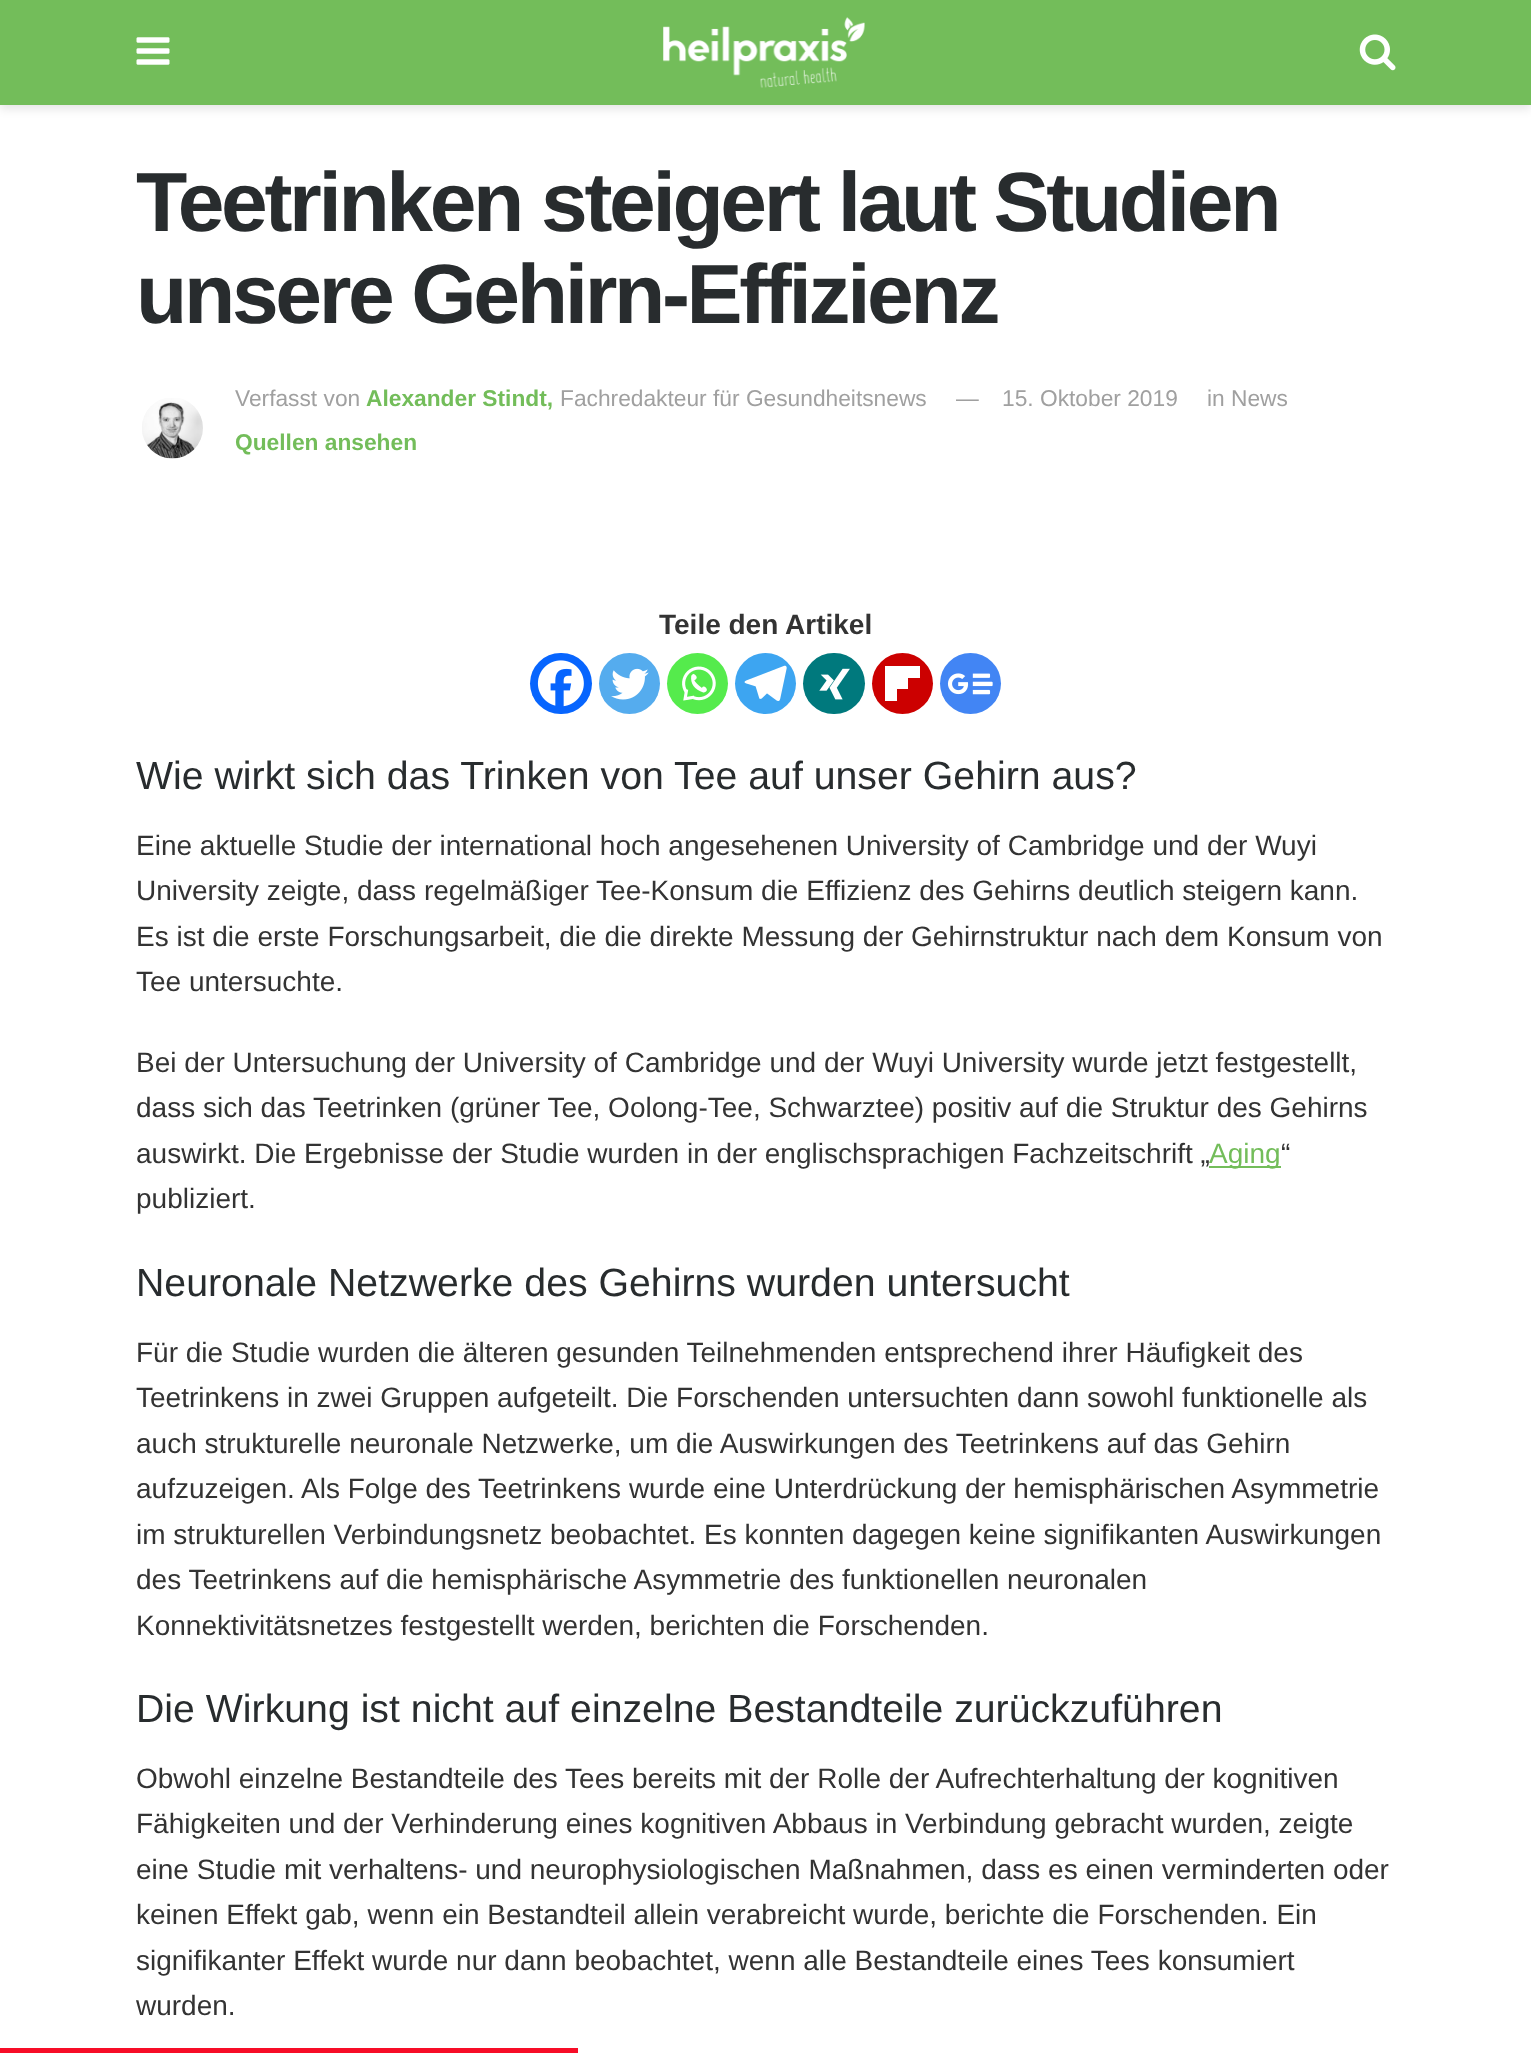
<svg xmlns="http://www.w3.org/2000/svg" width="1531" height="2053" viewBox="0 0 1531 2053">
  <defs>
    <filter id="blur1" x="-50%" y="-200%" width="200%" height="500%"><feGaussianBlur stdDeviation="5"/></filter>
  </defs>
  <rect width="100%" height="100%" fill="#ffffff"/>
  <rect x="0" y="4" width="1531" height="105" fill="#000000" fill-opacity="0.1" filter="url(#blur1)"/>
  <rect x="0" y="0" width="1531" height="105" fill="#73bd5a"/>
  <image x="136" y="37" width="34" height="28" href="img1.png"/>
  <image x="663" y="17" width="202" height="71" href="img2.png"/>
  <image x="1359" y="34" width="37" height="37" href="img3.png"/>
  <text x="136" y="231" font-family="Liberation Sans" font-size="84" font-weight="bold" letter-spacing="-3.35" fill="#282c2e">Teetrinken steigert laut Studien</text>
  <text x="136" y="323" font-family="Liberation Sans" font-size="84" font-weight="bold" letter-spacing="-3.35" fill="#282c2e">unsere Gehirn-Effizienz</text>
  <image x="142" y="398" width="61" height="61" href="img4.png"/>
  <text x="235" y="406" font-family="Liberation Sans" font-size="22.75" fill="#a0a0a0">Verfasst von</text>
  <text x="366" y="406" font-family="Liberation Sans" font-size="22.75" font-weight="bold" fill="#73bd5a">Alexander Stindt,</text>
  <text x="560" y="406" font-family="Liberation Sans" font-size="22.75" fill="#a0a0a0">Fachredakteur für Gesundheitsnews</text>
  <text x="235" y="450" font-family="Liberation Sans" font-size="22.75" font-weight="bold" fill="#73bd5a">Quellen ansehen</text>
  <text x="956" y="406" font-family="Liberation Sans" font-size="22.75" fill="#a0a0a0">—</text>
  <text x="1002" y="406" font-family="Liberation Sans" font-size="22.75" fill="#a0a0a0">15. Oktober 2019</text>
  <text x="1207" y="406" font-family="Liberation Sans" font-size="22.75" fill="#a0a0a0">in News</text>
  <text x="659" y="634" font-family="Liberation Sans" font-size="28" font-weight="bold" fill="#333333">Teile den Artikel</text>
  <rect x="530" y="653" width="62" height="61" rx="30.5" fill="#0765fe"/>
  <image x="537" y="660" width="47" height="47" href="img5.png"/>
  <circle cx="629.5" cy="683.5" r="30.5" fill="#55acee"/>
  <image x="611" y="668" width="38" height="32" href="img6.png"/>
  <circle cx="697.5" cy="683.5" r="30.5" fill="#55eb4c"/>
  <image x="682" y="666" width="34" height="35" href="img7.png"/>
  <circle cx="765.5" cy="683.5" r="30.5" fill="#3da5f1"/>
  <image x="744" y="665" width="43" height="36" href="img8.png"/>
  <rect x="803" y="653" width="62" height="61" rx="30.5" fill="#00797d"/>
  <image x="819" y="668" width="31" height="32" href="img9.png"/>
  <circle cx="902.5" cy="683.5" r="30.5" fill="#cc0000"/>
  <rect x="897" y="678" width="11" height="11" fill="#ffffff"/>
  <rect x="897" y="666" width="23" height="12" fill="#ffffff"/>
  <rect x="885" y="666" width="12" height="35" fill="#ffffff"/>
  <circle cx="970.5" cy="683.5" r="30.5" fill="#4285f4"/>
  <image x="947" y="673" width="46" height="22" href="img10.png"/>
  <text x="136" y="789" font-family="Liberation Sans" font-size="39.25" fill="#282c2e">Wie wirkt sich das Trinken von Tee auf unser Gehirn aus?</text>
  <text x="136" y="855" font-family="Liberation Sans" font-size="28" fill="#333333">Eine aktuelle Studie der international hoch angesehenen University of Cambridge und der Wuyi</text>
  <text x="136" y="900" font-family="Liberation Sans" font-size="28" fill="#333333">University zeigte, dass regelmäßiger Tee-Konsum die Effizienz des Gehirns deutlich steigern kann.</text>
  <text x="136" y="946" font-family="Liberation Sans" font-size="28" fill="#333333">Es ist die erste Forschungsarbeit, die die direkte Messung der Gehirnstruktur nach dem Konsum von</text>
  <text x="136" y="991" font-family="Liberation Sans" font-size="28" fill="#333333">Tee untersuchte.</text>
  <text x="136" y="1072" font-family="Liberation Sans" font-size="28" fill="#333333">Bei der Untersuchung der University of Cambridge und der Wuyi University wurde jetzt festgestellt,</text>
  <text x="136" y="1117" font-family="Liberation Sans" font-size="28" fill="#333333">dass sich das Teetrinken (grüner Tee, Oolong-Tee, Schwarztee) positiv auf die Struktur des Gehirns</text>
  <text x="136" y="1163" font-family="Liberation Sans" font-size="28" fill="#333333">auswirkt. Die Ergebnisse der Studie wurden in der englischsprachigen Fachzeitschrift „</text>
  <rect x="1209" y="1166" width="72" height="2" fill="#73bd5a"/>
  <text x="1209" y="1163" font-family="Liberation Sans" font-size="28" fill="#73bd5a">Aging</text>
  <text x="1281" y="1163" font-family="Liberation Sans" font-size="28" fill="#333333">“</text>
  <text x="136" y="1208" font-family="Liberation Sans" font-size="28" fill="#333333">publiziert.</text>
  <text x="136" y="1296" font-family="Liberation Sans" font-size="39.25" fill="#282c2e">Neuronale Netzwerke des Gehirns wurden untersucht</text>
  <text x="136" y="1362" font-family="Liberation Sans" font-size="28" fill="#333333">Für die Studie wurden die älteren gesunden Teilnehmenden entsprechend ihrer Häufigkeit des</text>
  <text x="136" y="1407" font-family="Liberation Sans" font-size="28" fill="#333333">Teetrinkens in zwei Gruppen aufgeteilt. Die Forschenden untersuchten dann sowohl funktionelle als</text>
  <text x="136" y="1453" font-family="Liberation Sans" font-size="28" fill="#333333">auch strukturelle neuronale Netzwerke, um die Auswirkungen des Teetrinkens auf das Gehirn</text>
  <text x="136" y="1498" font-family="Liberation Sans" font-size="28" fill="#333333">aufzuzeigen. Als Folge des Teetrinkens wurde eine Unterdrückung der hemisphärischen Asymmetrie</text>
  <text x="136" y="1544" font-family="Liberation Sans" font-size="28" fill="#333333">im strukturellen Verbindungsnetz beobachtet. Es konnten dagegen keine signifikanten Auswirkungen</text>
  <text x="136" y="1589" font-family="Liberation Sans" font-size="28" fill="#333333">des Teetrinkens auf die hemisphärische Asymmetrie des funktionellen neuronalen</text>
  <text x="136" y="1635" font-family="Liberation Sans" font-size="28" fill="#333333">Konnektivitätsnetzes festgestellt werden, berichten die Forschenden.</text>
  <text x="136" y="1722" font-family="Liberation Sans" font-size="39.25" fill="#282c2e">Die Wirkung ist nicht auf einzelne Bestandteile zurückzuführen</text>
  <text x="136" y="1788" font-family="Liberation Sans" font-size="28" fill="#333333">Obwohl einzelne Bestandteile des Tees bereits mit der Rolle der Aufrechterhaltung der kognitiven</text>
  <text x="136" y="1833" font-family="Liberation Sans" font-size="28" fill="#333333">Fähigkeiten und der Verhinderung eines kognitiven Abbaus in Verbindung gebracht wurden, zeigte</text>
  <text x="136" y="1879" font-family="Liberation Sans" font-size="28" fill="#333333">eine Studie mit verhaltens- und neurophysiologischen Maßnahmen, dass es einen verminderten oder</text>
  <text x="136" y="1924" font-family="Liberation Sans" font-size="28" fill="#333333">keinen Effekt gab, wenn ein Bestandteil allein verabreicht wurde, berichte die Forschenden. Ein</text>
  <text x="136" y="1970" font-family="Liberation Sans" font-size="28" fill="#333333">signifikanter Effekt wurde nur dann beobachtet, wenn alle Bestandteile eines Tees konsumiert</text>
  <text x="136" y="2015" font-family="Liberation Sans" font-size="28" fill="#333333">wurden.</text>
  <rect x="0" y="2048" width="578" height="5" fill="#f70d28"/>
</svg>
